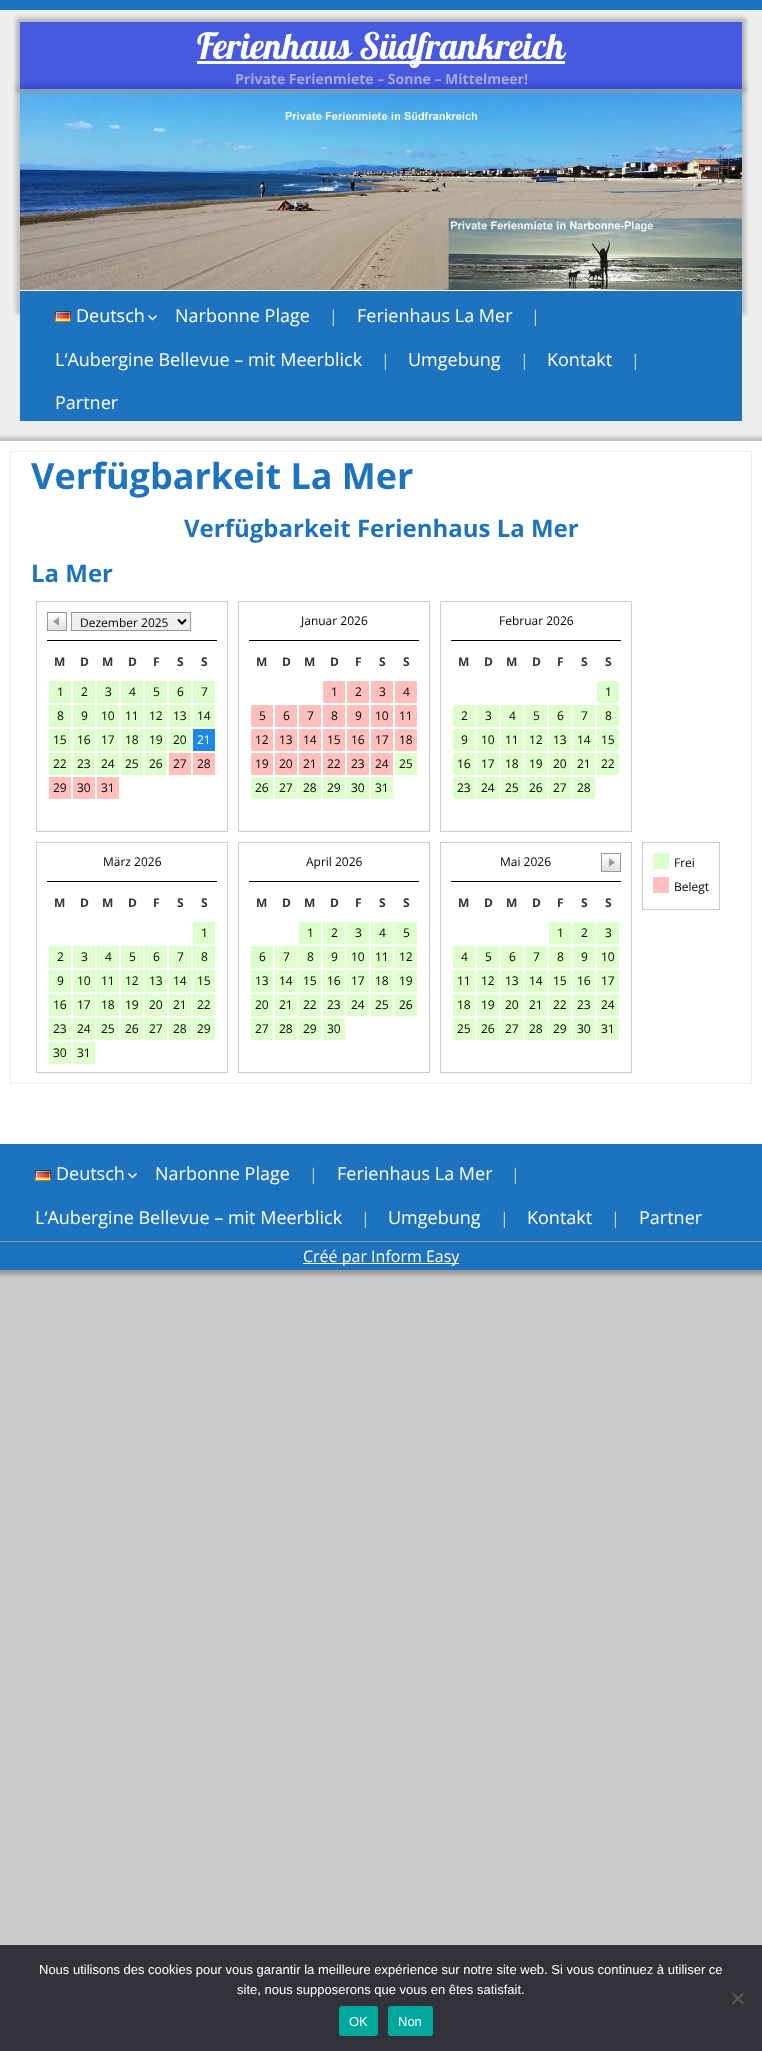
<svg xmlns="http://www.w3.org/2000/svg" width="762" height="2051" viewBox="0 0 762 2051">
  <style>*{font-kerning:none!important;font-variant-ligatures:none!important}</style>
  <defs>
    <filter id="blur1" x="-50%" y="-200%" width="200%" height="500%"><feGaussianBlur stdDeviation="2"/></filter>
    <clipPath id="clip1"><path d="M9 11H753V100H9ZM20 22H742V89H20Z" clip-rule="evenodd"/></clipPath>
  </defs>
  <rect width="100%" height="100%" fill="#cccccc"/>
  <rect x="-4" y="-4" width="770" height="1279" fill="#999999" filter="url(#blur1)"/>
  <rect x="0" y="10" width="762" height="431" fill="#eeeeee"/>
  <rect x="0" y="0" width="762" height="10" fill="#1e73be"/>
  <rect x="16" y="85" width="730" height="229" fill="#bfbfbf" filter="url(#blur1)"/>
  <image x="20" y="89" width="722" height="201" href="img1.png"/>
  <g clip-path="url(#clip1)">
    <rect x="16" y="18" width="730" height="75" fill="#999999" fill-opacity="0.7" filter="url(#blur1)"/>
  </g>
  <rect x="20" y="22" width="722" height="67" fill="#0019d8" fill-opacity="0.7"/>
  <rect x="197" y="61" width="368" height="3" fill="#fafafa"/>
  <text x="197" y="59" font-family="Lobster" font-size="36" fill="#ffffff">Ferienhaus Südfrankreich</text>
  <text x="235" y="84" font-family="Open Sans" font-size="14" font-weight="bold" fill="#a4a9d1">Private Ferienmiete – Sonne – Mittelmeer!</text>
  <rect x="20" y="291" width="722" height="130" fill="#1e73be"/>
  <rect x="20" y="290" width="722" height="1" fill="#ffffff"/>
  <image x="55" y="311" width="16" height="11" href="img2.png"/>
  <text x="76" y="322" font-family="Open Sans" font-size="18" fill="#ffffff">Deutsch</text>
  <image x="148" y="315" width="9" height="6" href="img3.png"/>
  <text x="175" y="322" font-family="Open Sans" font-size="18" fill="#ffffff">Narbonne Plage</text>
  <text x="329" y="322" font-family="Open Sans" font-size="16" fill="#c7dcef">|</text>
  <text x="357" y="322" font-family="Open Sans" font-size="18" fill="#ffffff">Ferienhaus La Mer</text>
  <text x="531" y="322" font-family="Open Sans" font-size="16" fill="#c7dcef">|</text>
  <text x="55" y="366" font-family="Open Sans" font-size="18" fill="#ffffff">L‘Aubergine Bellevue – mit Meerblick</text>
  <text x="381" y="366" font-family="Open Sans" font-size="16" fill="#c7dcef">|</text>
  <text x="408" y="366" font-family="Open Sans" font-size="18" fill="#ffffff">Umgebung</text>
  <text x="520" y="366" font-family="Open Sans" font-size="16" fill="#c7dcef">|</text>
  <text x="547" y="366" font-family="Open Sans" font-size="18" fill="#ffffff">Kontakt</text>
  <text x="631" y="366" font-family="Open Sans" font-size="16" fill="#c7dcef">|</text>
  <text x="55" y="409" font-family="Open Sans" font-size="18" fill="#ffffff">Partner</text>
  <rect x="-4" y="437" width="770" height="711" fill="#bfbfbf" filter="url(#blur1)"/>
  <rect x="0" y="441" width="762" height="703" fill="#ffffff"/>
  <rect x="10.5" y="451.5" width="741" height="632" fill="none" stroke="#eeeeee"/>
  <text x="31" y="489" font-family="Open Sans" font-size="36" font-weight="bold" fill="#1e73be">Verfügbarkeit La Mer</text>
  <text x="184" y="537" font-family="Open Sans" font-size="24" font-weight="bold" fill="#1e73be">Verfügbarkeit Ferienhaus La Mer</text>
  <text x="31" y="582" font-family="Open Sans" font-size="24" font-weight="bold" fill="#1e73be">La Mer</text>
  <rect x="36.5" y="601.5" width="191" height="230" fill="none" stroke="#cccccc"/>
  <rect x="47" y="640" width="170" height="1" fill="#000000"/>
  <image x="47" y="612" width="20" height="19" href="img4.png"/>
  <rect x="71.5" y="612.5" width="119" height="18" fill="#efefef" stroke="#999999"/>
  <path d="M178 619.5L182 623.5L186 619.5" fill="none" stroke="#000000" stroke-width="2"/>
  <text x="80" y="627" font-family="Open Sans" font-size="12" fill="#000000">Dezember 2025</text>
  <text x="54" y="666" font-family="Open Sans" font-size="12" font-weight="bold" fill="#333333">M</text>
  <text x="80" y="666" font-family="Open Sans" font-size="12" font-weight="bold" fill="#333333">D</text>
  <text x="102" y="666" font-family="Open Sans" font-size="12" font-weight="bold" fill="#333333">M</text>
  <text x="128" y="666" font-family="Open Sans" font-size="12" font-weight="bold" fill="#333333">D</text>
  <text x="153" y="666" font-family="Open Sans" font-size="12" font-weight="bold" fill="#333333">F</text>
  <text x="177" y="666" font-family="Open Sans" font-size="12" font-weight="bold" fill="#333333">S</text>
  <text x="201" y="666" font-family="Open Sans" font-size="12" font-weight="bold" fill="#333333">S</text>
  <rect x="49" y="681" width="22" height="22" fill="#ddffcc"/>
  <text x="57" y="696" font-family="Open Sans" font-size="12" fill="#000000">1</text>
  <rect x="73" y="681" width="22" height="22" fill="#ddffcc"/>
  <text x="81" y="696" font-family="Open Sans" font-size="12" fill="#000000">2</text>
  <rect x="97" y="681" width="22" height="22" fill="#ddffcc"/>
  <text x="105" y="696" font-family="Open Sans" font-size="12" fill="#000000">3</text>
  <rect x="121" y="681" width="22" height="22" fill="#ddffcc"/>
  <text x="129" y="696" font-family="Open Sans" font-size="12" fill="#000000">4</text>
  <rect x="145" y="681" width="22" height="22" fill="#ddffcc"/>
  <text x="153" y="696" font-family="Open Sans" font-size="12" fill="#000000">5</text>
  <rect x="169" y="681" width="22" height="22" fill="#ddffcc"/>
  <text x="177" y="696" font-family="Open Sans" font-size="12" fill="#000000">6</text>
  <rect x="193" y="681" width="22" height="22" fill="#ddffcc"/>
  <text x="201" y="696" font-family="Open Sans" font-size="12" fill="#000000">7</text>
  <rect x="49" y="705" width="22" height="22" fill="#ddffcc"/>
  <text x="57" y="720" font-family="Open Sans" font-size="12" fill="#000000">8</text>
  <rect x="73" y="705" width="22" height="22" fill="#ddffcc"/>
  <text x="81" y="720" font-family="Open Sans" font-size="12" fill="#000000">9</text>
  <rect x="97" y="705" width="22" height="22" fill="#ddffcc"/>
  <text x="101" y="720" font-family="Open Sans" font-size="12" fill="#000000">10</text>
  <rect x="121" y="705" width="22" height="22" fill="#ddffcc"/>
  <text x="125" y="720" font-family="Open Sans" font-size="12" fill="#000000">11</text>
  <rect x="145" y="705" width="22" height="22" fill="#ddffcc"/>
  <text x="149" y="720" font-family="Open Sans" font-size="12" fill="#000000">12</text>
  <rect x="169" y="705" width="22" height="22" fill="#ddffcc"/>
  <text x="173" y="720" font-family="Open Sans" font-size="12" fill="#000000">13</text>
  <rect x="193" y="705" width="22" height="22" fill="#ddffcc"/>
  <text x="197" y="720" font-family="Open Sans" font-size="12" fill="#000000">14</text>
  <rect x="49" y="729" width="22" height="22" fill="#ddffcc"/>
  <text x="53" y="744" font-family="Open Sans" font-size="12" fill="#000000">15</text>
  <rect x="73" y="729" width="22" height="22" fill="#ddffcc"/>
  <text x="77" y="744" font-family="Open Sans" font-size="12" fill="#000000">16</text>
  <rect x="97" y="729" width="22" height="22" fill="#ddffcc"/>
  <text x="101" y="744" font-family="Open Sans" font-size="12" fill="#000000">17</text>
  <rect x="121" y="729" width="22" height="22" fill="#ddffcc"/>
  <text x="125" y="744" font-family="Open Sans" font-size="12" fill="#000000">18</text>
  <rect x="145" y="729" width="22" height="22" fill="#ddffcc"/>
  <text x="149" y="744" font-family="Open Sans" font-size="12" fill="#000000">19</text>
  <rect x="169" y="729" width="22" height="22" fill="#ddffcc"/>
  <text x="173" y="744" font-family="Open Sans" font-size="12" fill="#000000">20</text>
  <rect x="193" y="729" width="22" height="22" fill="#1e88e5"/>
  <text x="197" y="744" font-family="Open Sans" font-size="12" fill="#ffffff">21</text>
  <rect x="49" y="753" width="22" height="22" fill="#ddffcc"/>
  <text x="53" y="768" font-family="Open Sans" font-size="12" fill="#000000">22</text>
  <rect x="73" y="753" width="22" height="22" fill="#ddffcc"/>
  <text x="77" y="768" font-family="Open Sans" font-size="12" fill="#000000">23</text>
  <rect x="97" y="753" width="22" height="22" fill="#ddffcc"/>
  <text x="101" y="768" font-family="Open Sans" font-size="12" fill="#000000">24</text>
  <rect x="121" y="753" width="22" height="22" fill="#ddffcc"/>
  <text x="125" y="768" font-family="Open Sans" font-size="12" fill="#000000">25</text>
  <rect x="145" y="753" width="22" height="22" fill="#ddffcc"/>
  <text x="149" y="768" font-family="Open Sans" font-size="12" fill="#000000">26</text>
  <rect x="169" y="753" width="22" height="22" fill="#ffc0bd"/>
  <text x="173" y="768" font-family="Open Sans" font-size="12" fill="#000000">27</text>
  <rect x="193" y="753" width="22" height="22" fill="#ffc0bd"/>
  <text x="197" y="768" font-family="Open Sans" font-size="12" fill="#000000">28</text>
  <rect x="49" y="777" width="22" height="22" fill="#ffc0bd"/>
  <text x="53" y="792" font-family="Open Sans" font-size="12" fill="#000000">29</text>
  <rect x="73" y="777" width="22" height="22" fill="#ffc0bd"/>
  <text x="77" y="792" font-family="Open Sans" font-size="12" fill="#000000">30</text>
  <rect x="97" y="777" width="22" height="22" fill="#ffc0bd"/>
  <text x="101" y="792" font-family="Open Sans" font-size="12" fill="#000000">31</text>
  <rect x="238.5" y="601.5" width="191" height="230" fill="none" stroke="#cccccc"/>
  <rect x="249" y="640" width="170" height="1" fill="#000000"/>
  <text x="301" y="625" font-family="Open Sans" font-size="12" fill="#000000">Januar 2026</text>
  <text x="256" y="666" font-family="Open Sans" font-size="12" font-weight="bold" fill="#333333">M</text>
  <text x="282" y="666" font-family="Open Sans" font-size="12" font-weight="bold" fill="#333333">D</text>
  <text x="304" y="666" font-family="Open Sans" font-size="12" font-weight="bold" fill="#333333">M</text>
  <text x="330" y="666" font-family="Open Sans" font-size="12" font-weight="bold" fill="#333333">D</text>
  <text x="355" y="666" font-family="Open Sans" font-size="12" font-weight="bold" fill="#333333">F</text>
  <text x="379" y="666" font-family="Open Sans" font-size="12" font-weight="bold" fill="#333333">S</text>
  <text x="403" y="666" font-family="Open Sans" font-size="12" font-weight="bold" fill="#333333">S</text>
  <rect x="323" y="681" width="22" height="22" fill="#ffc0bd"/>
  <text x="331" y="696" font-family="Open Sans" font-size="12" fill="#000000">1</text>
  <rect x="347" y="681" width="22" height="22" fill="#ffc0bd"/>
  <text x="355" y="696" font-family="Open Sans" font-size="12" fill="#000000">2</text>
  <rect x="371" y="681" width="22" height="22" fill="#ffc0bd"/>
  <text x="379" y="696" font-family="Open Sans" font-size="12" fill="#000000">3</text>
  <rect x="395" y="681" width="22" height="22" fill="#ffc0bd"/>
  <text x="403" y="696" font-family="Open Sans" font-size="12" fill="#000000">4</text>
  <rect x="251" y="705" width="22" height="22" fill="#ffc0bd"/>
  <text x="259" y="720" font-family="Open Sans" font-size="12" fill="#000000">5</text>
  <rect x="275" y="705" width="22" height="22" fill="#ffc0bd"/>
  <text x="283" y="720" font-family="Open Sans" font-size="12" fill="#000000">6</text>
  <rect x="299" y="705" width="22" height="22" fill="#ffc0bd"/>
  <text x="307" y="720" font-family="Open Sans" font-size="12" fill="#000000">7</text>
  <rect x="323" y="705" width="22" height="22" fill="#ffc0bd"/>
  <text x="331" y="720" font-family="Open Sans" font-size="12" fill="#000000">8</text>
  <rect x="347" y="705" width="22" height="22" fill="#ffc0bd"/>
  <text x="355" y="720" font-family="Open Sans" font-size="12" fill="#000000">9</text>
  <rect x="371" y="705" width="22" height="22" fill="#ffc0bd"/>
  <text x="375" y="720" font-family="Open Sans" font-size="12" fill="#000000">10</text>
  <rect x="395" y="705" width="22" height="22" fill="#ffc0bd"/>
  <text x="399" y="720" font-family="Open Sans" font-size="12" fill="#000000">11</text>
  <rect x="251" y="729" width="22" height="22" fill="#ffc0bd"/>
  <text x="255" y="744" font-family="Open Sans" font-size="12" fill="#000000">12</text>
  <rect x="275" y="729" width="22" height="22" fill="#ffc0bd"/>
  <text x="279" y="744" font-family="Open Sans" font-size="12" fill="#000000">13</text>
  <rect x="299" y="729" width="22" height="22" fill="#ffc0bd"/>
  <text x="303" y="744" font-family="Open Sans" font-size="12" fill="#000000">14</text>
  <rect x="323" y="729" width="22" height="22" fill="#ffc0bd"/>
  <text x="327" y="744" font-family="Open Sans" font-size="12" fill="#000000">15</text>
  <rect x="347" y="729" width="22" height="22" fill="#ffc0bd"/>
  <text x="351" y="744" font-family="Open Sans" font-size="12" fill="#000000">16</text>
  <rect x="371" y="729" width="22" height="22" fill="#ffc0bd"/>
  <text x="375" y="744" font-family="Open Sans" font-size="12" fill="#000000">17</text>
  <rect x="395" y="729" width="22" height="22" fill="#ffc0bd"/>
  <text x="399" y="744" font-family="Open Sans" font-size="12" fill="#000000">18</text>
  <rect x="251" y="753" width="22" height="22" fill="#ffc0bd"/>
  <text x="255" y="768" font-family="Open Sans" font-size="12" fill="#000000">19</text>
  <rect x="275" y="753" width="22" height="22" fill="#ffc0bd"/>
  <text x="279" y="768" font-family="Open Sans" font-size="12" fill="#000000">20</text>
  <rect x="299" y="753" width="22" height="22" fill="#ffc0bd"/>
  <text x="303" y="768" font-family="Open Sans" font-size="12" fill="#000000">21</text>
  <rect x="323" y="753" width="22" height="22" fill="#ffc0bd"/>
  <text x="327" y="768" font-family="Open Sans" font-size="12" fill="#000000">22</text>
  <rect x="347" y="753" width="22" height="22" fill="#ffc0bd"/>
  <text x="351" y="768" font-family="Open Sans" font-size="12" fill="#000000">23</text>
  <rect x="371" y="753" width="22" height="22" fill="#ffc0bd"/>
  <text x="375" y="768" font-family="Open Sans" font-size="12" fill="#000000">24</text>
  <rect x="395" y="753" width="22" height="22" fill="#ddffcc"/>
  <text x="399" y="768" font-family="Open Sans" font-size="12" fill="#000000">25</text>
  <rect x="251" y="777" width="22" height="22" fill="#ddffcc"/>
  <text x="255" y="792" font-family="Open Sans" font-size="12" fill="#000000">26</text>
  <rect x="275" y="777" width="22" height="22" fill="#ddffcc"/>
  <text x="279" y="792" font-family="Open Sans" font-size="12" fill="#000000">27</text>
  <rect x="299" y="777" width="22" height="22" fill="#ddffcc"/>
  <text x="303" y="792" font-family="Open Sans" font-size="12" fill="#000000">28</text>
  <rect x="323" y="777" width="22" height="22" fill="#ddffcc"/>
  <text x="327" y="792" font-family="Open Sans" font-size="12" fill="#000000">29</text>
  <rect x="347" y="777" width="22" height="22" fill="#ddffcc"/>
  <text x="351" y="792" font-family="Open Sans" font-size="12" fill="#000000">30</text>
  <rect x="371" y="777" width="22" height="22" fill="#ddffcc"/>
  <text x="375" y="792" font-family="Open Sans" font-size="12" fill="#000000">31</text>
  <rect x="440.5" y="601.5" width="191" height="230" fill="none" stroke="#cccccc"/>
  <rect x="451" y="640" width="170" height="1" fill="#000000"/>
  <text x="499" y="625" font-family="Open Sans" font-size="12" fill="#000000">Februar 2026</text>
  <text x="458" y="666" font-family="Open Sans" font-size="12" font-weight="bold" fill="#333333">M</text>
  <text x="484" y="666" font-family="Open Sans" font-size="12" font-weight="bold" fill="#333333">D</text>
  <text x="506" y="666" font-family="Open Sans" font-size="12" font-weight="bold" fill="#333333">M</text>
  <text x="532" y="666" font-family="Open Sans" font-size="12" font-weight="bold" fill="#333333">D</text>
  <text x="557" y="666" font-family="Open Sans" font-size="12" font-weight="bold" fill="#333333">F</text>
  <text x="581" y="666" font-family="Open Sans" font-size="12" font-weight="bold" fill="#333333">S</text>
  <text x="605" y="666" font-family="Open Sans" font-size="12" font-weight="bold" fill="#333333">S</text>
  <rect x="597" y="681" width="22" height="22" fill="#ddffcc"/>
  <text x="605" y="696" font-family="Open Sans" font-size="12" fill="#000000">1</text>
  <rect x="453" y="705" width="22" height="22" fill="#ddffcc"/>
  <text x="461" y="720" font-family="Open Sans" font-size="12" fill="#000000">2</text>
  <rect x="477" y="705" width="22" height="22" fill="#ddffcc"/>
  <text x="485" y="720" font-family="Open Sans" font-size="12" fill="#000000">3</text>
  <rect x="501" y="705" width="22" height="22" fill="#ddffcc"/>
  <text x="509" y="720" font-family="Open Sans" font-size="12" fill="#000000">4</text>
  <rect x="525" y="705" width="22" height="22" fill="#ddffcc"/>
  <text x="533" y="720" font-family="Open Sans" font-size="12" fill="#000000">5</text>
  <rect x="549" y="705" width="22" height="22" fill="#ddffcc"/>
  <text x="557" y="720" font-family="Open Sans" font-size="12" fill="#000000">6</text>
  <rect x="573" y="705" width="22" height="22" fill="#ddffcc"/>
  <text x="581" y="720" font-family="Open Sans" font-size="12" fill="#000000">7</text>
  <rect x="597" y="705" width="22" height="22" fill="#ddffcc"/>
  <text x="605" y="720" font-family="Open Sans" font-size="12" fill="#000000">8</text>
  <rect x="453" y="729" width="22" height="22" fill="#ddffcc"/>
  <text x="461" y="744" font-family="Open Sans" font-size="12" fill="#000000">9</text>
  <rect x="477" y="729" width="22" height="22" fill="#ddffcc"/>
  <text x="481" y="744" font-family="Open Sans" font-size="12" fill="#000000">10</text>
  <rect x="501" y="729" width="22" height="22" fill="#ddffcc"/>
  <text x="505" y="744" font-family="Open Sans" font-size="12" fill="#000000">11</text>
  <rect x="525" y="729" width="22" height="22" fill="#ddffcc"/>
  <text x="529" y="744" font-family="Open Sans" font-size="12" fill="#000000">12</text>
  <rect x="549" y="729" width="22" height="22" fill="#ddffcc"/>
  <text x="553" y="744" font-family="Open Sans" font-size="12" fill="#000000">13</text>
  <rect x="573" y="729" width="22" height="22" fill="#ddffcc"/>
  <text x="577" y="744" font-family="Open Sans" font-size="12" fill="#000000">14</text>
  <rect x="597" y="729" width="22" height="22" fill="#ddffcc"/>
  <text x="601" y="744" font-family="Open Sans" font-size="12" fill="#000000">15</text>
  <rect x="453" y="753" width="22" height="22" fill="#ddffcc"/>
  <text x="457" y="768" font-family="Open Sans" font-size="12" fill="#000000">16</text>
  <rect x="477" y="753" width="22" height="22" fill="#ddffcc"/>
  <text x="481" y="768" font-family="Open Sans" font-size="12" fill="#000000">17</text>
  <rect x="501" y="753" width="22" height="22" fill="#ddffcc"/>
  <text x="505" y="768" font-family="Open Sans" font-size="12" fill="#000000">18</text>
  <rect x="525" y="753" width="22" height="22" fill="#ddffcc"/>
  <text x="529" y="768" font-family="Open Sans" font-size="12" fill="#000000">19</text>
  <rect x="549" y="753" width="22" height="22" fill="#ddffcc"/>
  <text x="553" y="768" font-family="Open Sans" font-size="12" fill="#000000">20</text>
  <rect x="573" y="753" width="22" height="22" fill="#ddffcc"/>
  <text x="577" y="768" font-family="Open Sans" font-size="12" fill="#000000">21</text>
  <rect x="597" y="753" width="22" height="22" fill="#ddffcc"/>
  <text x="601" y="768" font-family="Open Sans" font-size="12" fill="#000000">22</text>
  <rect x="453" y="777" width="22" height="22" fill="#ddffcc"/>
  <text x="457" y="792" font-family="Open Sans" font-size="12" fill="#000000">23</text>
  <rect x="477" y="777" width="22" height="22" fill="#ddffcc"/>
  <text x="481" y="792" font-family="Open Sans" font-size="12" fill="#000000">24</text>
  <rect x="501" y="777" width="22" height="22" fill="#ddffcc"/>
  <text x="505" y="792" font-family="Open Sans" font-size="12" fill="#000000">25</text>
  <rect x="525" y="777" width="22" height="22" fill="#ddffcc"/>
  <text x="529" y="792" font-family="Open Sans" font-size="12" fill="#000000">26</text>
  <rect x="549" y="777" width="22" height="22" fill="#ddffcc"/>
  <text x="553" y="792" font-family="Open Sans" font-size="12" fill="#000000">27</text>
  <rect x="573" y="777" width="22" height="22" fill="#ddffcc"/>
  <text x="577" y="792" font-family="Open Sans" font-size="12" fill="#000000">28</text>
  <rect x="36.5" y="842.5" width="191" height="230" fill="none" stroke="#cccccc"/>
  <rect x="47" y="881" width="170" height="1" fill="#000000"/>
  <text x="103" y="866" font-family="Open Sans" font-size="12" fill="#000000">März 2026</text>
  <text x="54" y="907" font-family="Open Sans" font-size="12" font-weight="bold" fill="#333333">M</text>
  <text x="80" y="907" font-family="Open Sans" font-size="12" font-weight="bold" fill="#333333">D</text>
  <text x="102" y="907" font-family="Open Sans" font-size="12" font-weight="bold" fill="#333333">M</text>
  <text x="128" y="907" font-family="Open Sans" font-size="12" font-weight="bold" fill="#333333">D</text>
  <text x="153" y="907" font-family="Open Sans" font-size="12" font-weight="bold" fill="#333333">F</text>
  <text x="177" y="907" font-family="Open Sans" font-size="12" font-weight="bold" fill="#333333">S</text>
  <text x="201" y="907" font-family="Open Sans" font-size="12" font-weight="bold" fill="#333333">S</text>
  <rect x="193" y="922" width="22" height="22" fill="#ddffcc"/>
  <text x="201" y="937" font-family="Open Sans" font-size="12" fill="#000000">1</text>
  <rect x="49" y="946" width="22" height="22" fill="#ddffcc"/>
  <text x="57" y="961" font-family="Open Sans" font-size="12" fill="#000000">2</text>
  <rect x="73" y="946" width="22" height="22" fill="#ddffcc"/>
  <text x="81" y="961" font-family="Open Sans" font-size="12" fill="#000000">3</text>
  <rect x="97" y="946" width="22" height="22" fill="#ddffcc"/>
  <text x="105" y="961" font-family="Open Sans" font-size="12" fill="#000000">4</text>
  <rect x="121" y="946" width="22" height="22" fill="#ddffcc"/>
  <text x="129" y="961" font-family="Open Sans" font-size="12" fill="#000000">5</text>
  <rect x="145" y="946" width="22" height="22" fill="#ddffcc"/>
  <text x="153" y="961" font-family="Open Sans" font-size="12" fill="#000000">6</text>
  <rect x="169" y="946" width="22" height="22" fill="#ddffcc"/>
  <text x="177" y="961" font-family="Open Sans" font-size="12" fill="#000000">7</text>
  <rect x="193" y="946" width="22" height="22" fill="#ddffcc"/>
  <text x="201" y="961" font-family="Open Sans" font-size="12" fill="#000000">8</text>
  <rect x="49" y="970" width="22" height="22" fill="#ddffcc"/>
  <text x="57" y="985" font-family="Open Sans" font-size="12" fill="#000000">9</text>
  <rect x="73" y="970" width="22" height="22" fill="#ddffcc"/>
  <text x="77" y="985" font-family="Open Sans" font-size="12" fill="#000000">10</text>
  <rect x="97" y="970" width="22" height="22" fill="#ddffcc"/>
  <text x="101" y="985" font-family="Open Sans" font-size="12" fill="#000000">11</text>
  <rect x="121" y="970" width="22" height="22" fill="#ddffcc"/>
  <text x="125" y="985" font-family="Open Sans" font-size="12" fill="#000000">12</text>
  <rect x="145" y="970" width="22" height="22" fill="#ddffcc"/>
  <text x="149" y="985" font-family="Open Sans" font-size="12" fill="#000000">13</text>
  <rect x="169" y="970" width="22" height="22" fill="#ddffcc"/>
  <text x="173" y="985" font-family="Open Sans" font-size="12" fill="#000000">14</text>
  <rect x="193" y="970" width="22" height="22" fill="#ddffcc"/>
  <text x="197" y="985" font-family="Open Sans" font-size="12" fill="#000000">15</text>
  <rect x="49" y="994" width="22" height="22" fill="#ddffcc"/>
  <text x="53" y="1009" font-family="Open Sans" font-size="12" fill="#000000">16</text>
  <rect x="73" y="994" width="22" height="22" fill="#ddffcc"/>
  <text x="77" y="1009" font-family="Open Sans" font-size="12" fill="#000000">17</text>
  <rect x="97" y="994" width="22" height="22" fill="#ddffcc"/>
  <text x="101" y="1009" font-family="Open Sans" font-size="12" fill="#000000">18</text>
  <rect x="121" y="994" width="22" height="22" fill="#ddffcc"/>
  <text x="125" y="1009" font-family="Open Sans" font-size="12" fill="#000000">19</text>
  <rect x="145" y="994" width="22" height="22" fill="#ddffcc"/>
  <text x="149" y="1009" font-family="Open Sans" font-size="12" fill="#000000">20</text>
  <rect x="169" y="994" width="22" height="22" fill="#ddffcc"/>
  <text x="173" y="1009" font-family="Open Sans" font-size="12" fill="#000000">21</text>
  <rect x="193" y="994" width="22" height="22" fill="#ddffcc"/>
  <text x="197" y="1009" font-family="Open Sans" font-size="12" fill="#000000">22</text>
  <rect x="49" y="1018" width="22" height="22" fill="#ddffcc"/>
  <text x="53" y="1033" font-family="Open Sans" font-size="12" fill="#000000">23</text>
  <rect x="73" y="1018" width="22" height="22" fill="#ddffcc"/>
  <text x="77" y="1033" font-family="Open Sans" font-size="12" fill="#000000">24</text>
  <rect x="97" y="1018" width="22" height="22" fill="#ddffcc"/>
  <text x="101" y="1033" font-family="Open Sans" font-size="12" fill="#000000">25</text>
  <rect x="121" y="1018" width="22" height="22" fill="#ddffcc"/>
  <text x="125" y="1033" font-family="Open Sans" font-size="12" fill="#000000">26</text>
  <rect x="145" y="1018" width="22" height="22" fill="#ddffcc"/>
  <text x="149" y="1033" font-family="Open Sans" font-size="12" fill="#000000">27</text>
  <rect x="169" y="1018" width="22" height="22" fill="#ddffcc"/>
  <text x="173" y="1033" font-family="Open Sans" font-size="12" fill="#000000">28</text>
  <rect x="193" y="1018" width="22" height="22" fill="#ddffcc"/>
  <text x="197" y="1033" font-family="Open Sans" font-size="12" fill="#000000">29</text>
  <rect x="49" y="1042" width="22" height="22" fill="#ddffcc"/>
  <text x="53" y="1057" font-family="Open Sans" font-size="12" fill="#000000">30</text>
  <rect x="73" y="1042" width="22" height="22" fill="#ddffcc"/>
  <text x="77" y="1057" font-family="Open Sans" font-size="12" fill="#000000">31</text>
  <rect x="238.5" y="842.5" width="191" height="230" fill="none" stroke="#cccccc"/>
  <rect x="249" y="881" width="170" height="1" fill="#000000"/>
  <text x="306" y="866" font-family="Open Sans" font-size="12" fill="#000000">April 2026</text>
  <text x="256" y="907" font-family="Open Sans" font-size="12" font-weight="bold" fill="#333333">M</text>
  <text x="282" y="907" font-family="Open Sans" font-size="12" font-weight="bold" fill="#333333">D</text>
  <text x="304" y="907" font-family="Open Sans" font-size="12" font-weight="bold" fill="#333333">M</text>
  <text x="330" y="907" font-family="Open Sans" font-size="12" font-weight="bold" fill="#333333">D</text>
  <text x="355" y="907" font-family="Open Sans" font-size="12" font-weight="bold" fill="#333333">F</text>
  <text x="379" y="907" font-family="Open Sans" font-size="12" font-weight="bold" fill="#333333">S</text>
  <text x="403" y="907" font-family="Open Sans" font-size="12" font-weight="bold" fill="#333333">S</text>
  <rect x="299" y="922" width="22" height="22" fill="#ddffcc"/>
  <text x="307" y="937" font-family="Open Sans" font-size="12" fill="#000000">1</text>
  <rect x="323" y="922" width="22" height="22" fill="#ddffcc"/>
  <text x="331" y="937" font-family="Open Sans" font-size="12" fill="#000000">2</text>
  <rect x="347" y="922" width="22" height="22" fill="#ddffcc"/>
  <text x="355" y="937" font-family="Open Sans" font-size="12" fill="#000000">3</text>
  <rect x="371" y="922" width="22" height="22" fill="#ddffcc"/>
  <text x="379" y="937" font-family="Open Sans" font-size="12" fill="#000000">4</text>
  <rect x="395" y="922" width="22" height="22" fill="#ddffcc"/>
  <text x="403" y="937" font-family="Open Sans" font-size="12" fill="#000000">5</text>
  <rect x="251" y="946" width="22" height="22" fill="#ddffcc"/>
  <text x="259" y="961" font-family="Open Sans" font-size="12" fill="#000000">6</text>
  <rect x="275" y="946" width="22" height="22" fill="#ddffcc"/>
  <text x="283" y="961" font-family="Open Sans" font-size="12" fill="#000000">7</text>
  <rect x="299" y="946" width="22" height="22" fill="#ddffcc"/>
  <text x="307" y="961" font-family="Open Sans" font-size="12" fill="#000000">8</text>
  <rect x="323" y="946" width="22" height="22" fill="#ddffcc"/>
  <text x="331" y="961" font-family="Open Sans" font-size="12" fill="#000000">9</text>
  <rect x="347" y="946" width="22" height="22" fill="#ddffcc"/>
  <text x="351" y="961" font-family="Open Sans" font-size="12" fill="#000000">10</text>
  <rect x="371" y="946" width="22" height="22" fill="#ddffcc"/>
  <text x="375" y="961" font-family="Open Sans" font-size="12" fill="#000000">11</text>
  <rect x="395" y="946" width="22" height="22" fill="#ddffcc"/>
  <text x="399" y="961" font-family="Open Sans" font-size="12" fill="#000000">12</text>
  <rect x="251" y="970" width="22" height="22" fill="#ddffcc"/>
  <text x="255" y="985" font-family="Open Sans" font-size="12" fill="#000000">13</text>
  <rect x="275" y="970" width="22" height="22" fill="#ddffcc"/>
  <text x="279" y="985" font-family="Open Sans" font-size="12" fill="#000000">14</text>
  <rect x="299" y="970" width="22" height="22" fill="#ddffcc"/>
  <text x="303" y="985" font-family="Open Sans" font-size="12" fill="#000000">15</text>
  <rect x="323" y="970" width="22" height="22" fill="#ddffcc"/>
  <text x="327" y="985" font-family="Open Sans" font-size="12" fill="#000000">16</text>
  <rect x="347" y="970" width="22" height="22" fill="#ddffcc"/>
  <text x="351" y="985" font-family="Open Sans" font-size="12" fill="#000000">17</text>
  <rect x="371" y="970" width="22" height="22" fill="#ddffcc"/>
  <text x="375" y="985" font-family="Open Sans" font-size="12" fill="#000000">18</text>
  <rect x="395" y="970" width="22" height="22" fill="#ddffcc"/>
  <text x="399" y="985" font-family="Open Sans" font-size="12" fill="#000000">19</text>
  <rect x="251" y="994" width="22" height="22" fill="#ddffcc"/>
  <text x="255" y="1009" font-family="Open Sans" font-size="12" fill="#000000">20</text>
  <rect x="275" y="994" width="22" height="22" fill="#ddffcc"/>
  <text x="279" y="1009" font-family="Open Sans" font-size="12" fill="#000000">21</text>
  <rect x="299" y="994" width="22" height="22" fill="#ddffcc"/>
  <text x="303" y="1009" font-family="Open Sans" font-size="12" fill="#000000">22</text>
  <rect x="323" y="994" width="22" height="22" fill="#ddffcc"/>
  <text x="327" y="1009" font-family="Open Sans" font-size="12" fill="#000000">23</text>
  <rect x="347" y="994" width="22" height="22" fill="#ddffcc"/>
  <text x="351" y="1009" font-family="Open Sans" font-size="12" fill="#000000">24</text>
  <rect x="371" y="994" width="22" height="22" fill="#ddffcc"/>
  <text x="375" y="1009" font-family="Open Sans" font-size="12" fill="#000000">25</text>
  <rect x="395" y="994" width="22" height="22" fill="#ddffcc"/>
  <text x="399" y="1009" font-family="Open Sans" font-size="12" fill="#000000">26</text>
  <rect x="251" y="1018" width="22" height="22" fill="#ddffcc"/>
  <text x="255" y="1033" font-family="Open Sans" font-size="12" fill="#000000">27</text>
  <rect x="275" y="1018" width="22" height="22" fill="#ddffcc"/>
  <text x="279" y="1033" font-family="Open Sans" font-size="12" fill="#000000">28</text>
  <rect x="299" y="1018" width="22" height="22" fill="#ddffcc"/>
  <text x="303" y="1033" font-family="Open Sans" font-size="12" fill="#000000">29</text>
  <rect x="323" y="1018" width="22" height="22" fill="#ddffcc"/>
  <text x="327" y="1033" font-family="Open Sans" font-size="12" fill="#000000">30</text>
  <rect x="440.5" y="842.5" width="191" height="230" fill="none" stroke="#cccccc"/>
  <rect x="451" y="881" width="170" height="1" fill="#000000"/>
  <text x="500" y="866" font-family="Open Sans" font-size="12" fill="#000000">Mai 2026</text>
  <image x="601" y="853" width="20" height="19" href="img5.png"/>
  <text x="458" y="907" font-family="Open Sans" font-size="12" font-weight="bold" fill="#333333">M</text>
  <text x="484" y="907" font-family="Open Sans" font-size="12" font-weight="bold" fill="#333333">D</text>
  <text x="506" y="907" font-family="Open Sans" font-size="12" font-weight="bold" fill="#333333">M</text>
  <text x="532" y="907" font-family="Open Sans" font-size="12" font-weight="bold" fill="#333333">D</text>
  <text x="557" y="907" font-family="Open Sans" font-size="12" font-weight="bold" fill="#333333">F</text>
  <text x="581" y="907" font-family="Open Sans" font-size="12" font-weight="bold" fill="#333333">S</text>
  <text x="605" y="907" font-family="Open Sans" font-size="12" font-weight="bold" fill="#333333">S</text>
  <rect x="549" y="922" width="22" height="22" fill="#ddffcc"/>
  <text x="557" y="937" font-family="Open Sans" font-size="12" fill="#000000">1</text>
  <rect x="573" y="922" width="22" height="22" fill="#ddffcc"/>
  <text x="581" y="937" font-family="Open Sans" font-size="12" fill="#000000">2</text>
  <rect x="597" y="922" width="22" height="22" fill="#ddffcc"/>
  <text x="605" y="937" font-family="Open Sans" font-size="12" fill="#000000">3</text>
  <rect x="453" y="946" width="22" height="22" fill="#ddffcc"/>
  <text x="461" y="961" font-family="Open Sans" font-size="12" fill="#000000">4</text>
  <rect x="477" y="946" width="22" height="22" fill="#ddffcc"/>
  <text x="485" y="961" font-family="Open Sans" font-size="12" fill="#000000">5</text>
  <rect x="501" y="946" width="22" height="22" fill="#ddffcc"/>
  <text x="509" y="961" font-family="Open Sans" font-size="12" fill="#000000">6</text>
  <rect x="525" y="946" width="22" height="22" fill="#ddffcc"/>
  <text x="533" y="961" font-family="Open Sans" font-size="12" fill="#000000">7</text>
  <rect x="549" y="946" width="22" height="22" fill="#ddffcc"/>
  <text x="557" y="961" font-family="Open Sans" font-size="12" fill="#000000">8</text>
  <rect x="573" y="946" width="22" height="22" fill="#ddffcc"/>
  <text x="581" y="961" font-family="Open Sans" font-size="12" fill="#000000">9</text>
  <rect x="597" y="946" width="22" height="22" fill="#ddffcc"/>
  <text x="601" y="961" font-family="Open Sans" font-size="12" fill="#000000">10</text>
  <rect x="453" y="970" width="22" height="22" fill="#ddffcc"/>
  <text x="457" y="985" font-family="Open Sans" font-size="12" fill="#000000">11</text>
  <rect x="477" y="970" width="22" height="22" fill="#ddffcc"/>
  <text x="481" y="985" font-family="Open Sans" font-size="12" fill="#000000">12</text>
  <rect x="501" y="970" width="22" height="22" fill="#ddffcc"/>
  <text x="505" y="985" font-family="Open Sans" font-size="12" fill="#000000">13</text>
  <rect x="525" y="970" width="22" height="22" fill="#ddffcc"/>
  <text x="529" y="985" font-family="Open Sans" font-size="12" fill="#000000">14</text>
  <rect x="549" y="970" width="22" height="22" fill="#ddffcc"/>
  <text x="553" y="985" font-family="Open Sans" font-size="12" fill="#000000">15</text>
  <rect x="573" y="970" width="22" height="22" fill="#ddffcc"/>
  <text x="577" y="985" font-family="Open Sans" font-size="12" fill="#000000">16</text>
  <rect x="597" y="970" width="22" height="22" fill="#ddffcc"/>
  <text x="601" y="985" font-family="Open Sans" font-size="12" fill="#000000">17</text>
  <rect x="453" y="994" width="22" height="22" fill="#ddffcc"/>
  <text x="457" y="1009" font-family="Open Sans" font-size="12" fill="#000000">18</text>
  <rect x="477" y="994" width="22" height="22" fill="#ddffcc"/>
  <text x="481" y="1009" font-family="Open Sans" font-size="12" fill="#000000">19</text>
  <rect x="501" y="994" width="22" height="22" fill="#ddffcc"/>
  <text x="505" y="1009" font-family="Open Sans" font-size="12" fill="#000000">20</text>
  <rect x="525" y="994" width="22" height="22" fill="#ddffcc"/>
  <text x="529" y="1009" font-family="Open Sans" font-size="12" fill="#000000">21</text>
  <rect x="549" y="994" width="22" height="22" fill="#ddffcc"/>
  <text x="553" y="1009" font-family="Open Sans" font-size="12" fill="#000000">22</text>
  <rect x="573" y="994" width="22" height="22" fill="#ddffcc"/>
  <text x="577" y="1009" font-family="Open Sans" font-size="12" fill="#000000">23</text>
  <rect x="597" y="994" width="22" height="22" fill="#ddffcc"/>
  <text x="601" y="1009" font-family="Open Sans" font-size="12" fill="#000000">24</text>
  <rect x="453" y="1018" width="22" height="22" fill="#ddffcc"/>
  <text x="457" y="1033" font-family="Open Sans" font-size="12" fill="#000000">25</text>
  <rect x="477" y="1018" width="22" height="22" fill="#ddffcc"/>
  <text x="481" y="1033" font-family="Open Sans" font-size="12" fill="#000000">26</text>
  <rect x="501" y="1018" width="22" height="22" fill="#ddffcc"/>
  <text x="505" y="1033" font-family="Open Sans" font-size="12" fill="#000000">27</text>
  <rect x="525" y="1018" width="22" height="22" fill="#ddffcc"/>
  <text x="529" y="1033" font-family="Open Sans" font-size="12" fill="#000000">28</text>
  <rect x="549" y="1018" width="22" height="22" fill="#ddffcc"/>
  <text x="553" y="1033" font-family="Open Sans" font-size="12" fill="#000000">29</text>
  <rect x="573" y="1018" width="22" height="22" fill="#ddffcc"/>
  <text x="577" y="1033" font-family="Open Sans" font-size="12" fill="#000000">30</text>
  <rect x="597" y="1018" width="22" height="22" fill="#ddffcc"/>
  <text x="601" y="1033" font-family="Open Sans" font-size="12" fill="#000000">31</text>
  <rect x="642.5" y="842.5" width="77" height="67" fill="none" stroke="#cccccc"/>
  <rect x="653" y="853" width="16" height="16" fill="#ddffcc"/>
  <text x="674" y="867" font-family="Open Sans" font-size="12" fill="#000000">Frei</text>
  <rect x="653" y="877" width="16" height="16" fill="#ffc0bd"/>
  <text x="674" y="891" font-family="Open Sans" font-size="12" fill="#000000">Belegt</text>
  <rect x="0" y="1144" width="762" height="97" fill="#1e73be"/>
  <image x="35" y="1170" width="16" height="11" href="img2.png"/>
  <text x="56" y="1180" font-family="Open Sans" font-size="18" fill="#ffffff">Deutsch</text>
  <image x="128" y="1173" width="9" height="6" href="img3.png"/>
  <text x="155" y="1180" font-family="Open Sans" font-size="18" fill="#ffffff">Narbonne Plage</text>
  <text x="309" y="1180" font-family="Open Sans" font-size="16" fill="#c7dcef">|</text>
  <text x="337" y="1180" font-family="Open Sans" font-size="18" fill="#ffffff">Ferienhaus La Mer</text>
  <text x="511" y="1180" font-family="Open Sans" font-size="16" fill="#c7dcef">|</text>
  <text x="35" y="1224" font-family="Open Sans" font-size="18" fill="#ffffff">L‘Aubergine Bellevue – mit Meerblick</text>
  <text x="361" y="1224" font-family="Open Sans" font-size="16" fill="#c7dcef">|</text>
  <text x="388" y="1224" font-family="Open Sans" font-size="18" fill="#ffffff">Umgebung</text>
  <text x="500" y="1224" font-family="Open Sans" font-size="16" fill="#c7dcef">|</text>
  <text x="527" y="1224" font-family="Open Sans" font-size="18" fill="#ffffff">Kontakt</text>
  <text x="611" y="1224" font-family="Open Sans" font-size="16" fill="#c7dcef">|</text>
  <text x="639" y="1224" font-family="Open Sans" font-size="18" fill="#ffffff">Partner</text>
  <rect x="0" y="1242" width="762" height="28" fill="#1e73be"/>
  <rect x="303" y="1263" width="156" height="1" fill="#ffffff"/>
  <text x="303" y="1262" font-family="Open Sans" font-size="16" fill="#ffffff">Créé par Inform Easy</text>
  <rect x="0" y="1945" width="762" height="106" fill="#32323a"/>
  <text x="39" y="1974" font-family="Liberation Sans" font-size="13" fill="#ffffff">Nous utilisons des cookies pour vous garantir la meilleure expérience sur notre site web. Si vous continuez à utiliser ce</text>
  <text x="237" y="1994" font-family="Liberation Sans" font-size="13" fill="#ffffff">site, nous supposerons que vous en êtes satisfait.</text>
  <path d="M742.5 1992.5L744 1994L733.5 2004.5L732 2003Z" fill="#59595d"/>
  <path d="M732 1994L733.5 1992.5L744 2003L742.5 2004.5Z" fill="#59595d"/>
  <rect x="339" y="2006" width="39" height="30" rx="3" fill="#00a99d"/>
  <text x="349" y="2026" font-family="Liberation Sans" font-size="13" fill="#ffffff">OK</text>
  <rect x="388" y="2006" width="45" height="30" rx="3" fill="#00a99d"/>
  <text x="398" y="2026" font-family="Liberation Sans" font-size="13" fill="#ffffff">Non</text>
</svg>
